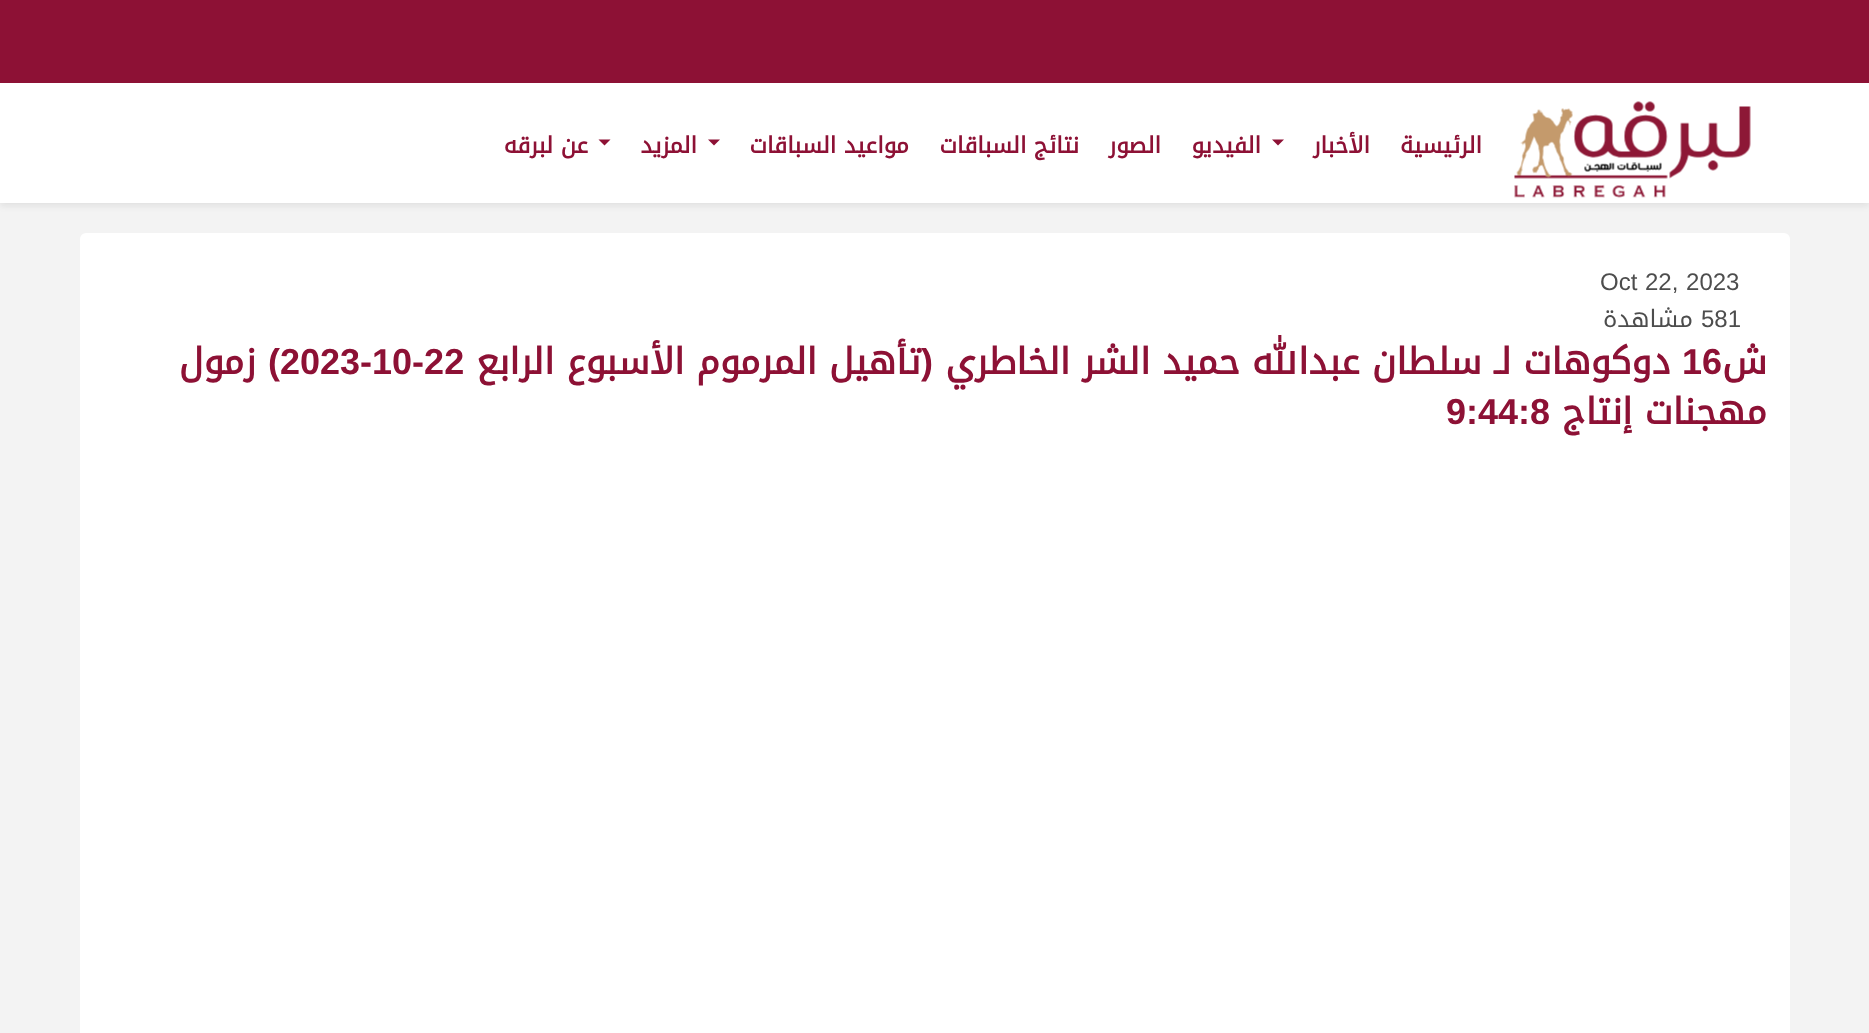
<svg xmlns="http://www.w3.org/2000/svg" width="1869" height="1033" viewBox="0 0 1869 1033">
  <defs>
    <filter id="blur1" x="-50%" y="-200%" width="200%" height="500%"><feGaussianBlur stdDeviation="3"/></filter>
  </defs>
  <rect width="100%" height="100%" fill="#f3f3f3"/>
  <rect x="0" y="3" width="1869" height="203" fill="#000000" fill-opacity="0.08" filter="url(#blur1)"/>
  <rect x="0" y="83" width="1869" height="120" fill="#ffffff"/>
  <rect x="0" y="0" width="1869" height="83" fill="#8d1135"/>
  <image x="1514" y="101" width="237" height="97" href="img1.png"/>
  <text x="1482" y="153" font-family="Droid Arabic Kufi" font-size="22.5" font-weight="bold" direction="rtl" fill="#8d1135">الرئيسية</text>
  <text x="1370" y="153" font-family="Droid Arabic Kufi" font-size="22.5" font-weight="bold" direction="rtl" fill="#8d1135">الأخبار</text>
  <path d="M1272 139.5H1284L1278 145.5Z" fill="#8d1135"/>
  <text x="1261" y="153" font-family="Droid Arabic Kufi" font-size="22.5" font-weight="bold" direction="rtl" fill="#8d1135">الفيديو</text>
  <text x="1161" y="153" font-family="Droid Arabic Kufi" font-size="22.5" font-weight="bold" direction="rtl" fill="#8d1135">الصور</text>
  <text x="1079" y="153" font-family="Droid Arabic Kufi" font-size="22.5" font-weight="bold" direction="rtl" fill="#8d1135">نتائج السباقات</text>
  <text x="909" y="153" font-family="Droid Arabic Kufi" font-size="22.5" font-weight="bold" direction="rtl" fill="#8d1135">مواعيد السباقات</text>
  <path d="M708 139.5H720L714 145.5Z" fill="#8d1135"/>
  <text x="697" y="153" font-family="Droid Arabic Kufi" font-size="22.5" font-weight="bold" direction="rtl" fill="#8d1135">المزيد</text>
  <path d="M598.5 139.5H610.5L604.5 145.5Z" fill="#8d1135"/>
  <text x="588" y="153" font-family="Droid Arabic Kufi" font-size="22.5" font-weight="bold" direction="rtl" fill="#8d1135">عن لبرقه</text>
  <rect x="80" y="233" width="1710" height="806" rx="6" fill="#ffffff"/>
  <text x="1600" y="290" word-spacing="1" font-family="Liberation Sans" font-size="24" fill="#4d4d4d">Oct 22, 2023</text>
  <text x="1701" y="327" font-family="Liberation Sans" font-size="24" fill="#4d4d4d">581</text>
  <text x="1693" y="327" font-family="Droid Arabic Kufi" font-size="24" direction="rtl" fill="#4d4d4d">مشاهدة</text>
  <text x="1767" y="374" font-family="Droid Arabic Kufi" font-size="36" font-weight="bold" direction="rtl" fill="#8d1135">ش</text>
  <text x="1682" y="374" font-family="Liberation Sans" font-size="36" font-weight="bold" fill="#8d1135">16</text>
  <text x="1670" y="374" font-family="Droid Arabic Kufi" font-size="36" font-weight="bold" direction="rtl" fill="#8d1135">دوكوهات لـ سلطان عبدالله حميد الشر الخاطري</text>
  <text x="933" y="374" font-family="Liberation Sans" font-size="36" font-weight="bold" direction="rtl" fill="#8d1135">(</text>
  <text x="921" y="374" font-family="Droid Arabic Kufi" font-size="36" font-weight="bold" direction="rtl" fill="#8d1135">تأهيل المرموم الأسبوع الرابع</text>
  <text x="280" y="374" font-family="Liberation Sans" font-size="36" font-weight="bold" fill="#8d1135">2023-10-22</text>
  <text x="280" y="374" font-family="Liberation Sans" font-size="36" font-weight="bold" direction="rtl" fill="#8d1135">)</text>
  <text x="256" y="374" font-family="Droid Arabic Kufi" font-size="36" font-weight="bold" direction="rtl" fill="#8d1135">زمول</text>
  <text x="1767" y="424" font-family="Droid Arabic Kufi" font-size="36" font-weight="bold" direction="rtl" fill="#8d1135">مهجنات إنتاج</text>
  <text x="1446" y="424" font-family="Liberation Sans" font-size="36" font-weight="bold" fill="#8d1135">9:44:8</text>
</svg>
